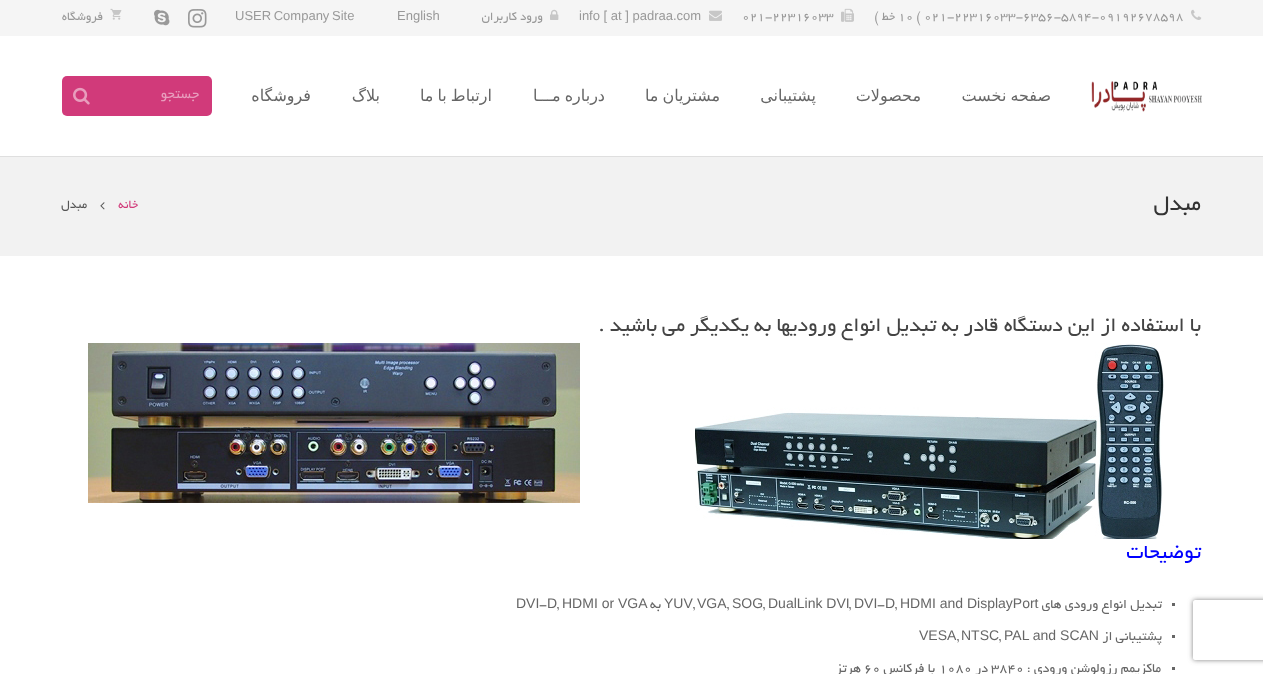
<svg xmlns="http://www.w3.org/2000/svg" width="1263" height="674" viewBox="0 0 1263 674">
  <defs>
    <clipPath id="clip1"><path d="M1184 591H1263V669H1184ZM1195 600H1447C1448 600 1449 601 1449 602V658C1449 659 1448 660 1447 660H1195C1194 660 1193 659 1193 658V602C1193 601 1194 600 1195 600Z" clip-rule="evenodd"/></clipPath>
    <filter id="blur1" x="-50%" y="-200%" width="200%" height="500%"><feGaussianBlur stdDeviation="2.5"/></filter>
  </defs>
  <rect width="100%" height="100%" fill="#ffffff"/>
  <g clip-path="url(#clip1)">
    <rect x="1193" y="600" width="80" height="60" rx="2" fill="#808080" filter="url(#blur1)"/>
  </g>
  <rect x="0" y="0" width="1263" height="36" fill="#f5f5f5"/>
  <image x="1191" y="9" width="11" height="11" href="img1.png"/>
  <text x="898" y="20" font-family="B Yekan" font-size="13" fill="#999999">10 ( 021-22316033-6356-5894-09192678598</text>
  <text x="895" y="20" font-family="B Yekan" font-size="13" direction="rtl" fill="#999999">خط )</text>
  <image x="841" y="8" width="13" height="14" href="img2.png"/>
  <text x="742" y="20" font-family="B Yekan" font-size="13" fill="#999999">021-22316033</text>
  <image x="709" y="10" width="13" height="11" href="img3.png"/>
  <text x="579" y="20" font-family="Liberation Sans" font-size="13" fill="#999999">info [ at ] padraa.com</text>
  <image x="550" y="9" width="9" height="11" href="img4.png"/>
  <text x="543" y="20" font-family="B Yekan" font-size="13" direction="rtl" fill="#999999">ورود کاربران</text>
  <text x="397" y="20" font-family="Liberation Sans" font-size="13" fill="#999999">English</text>
  <text x="235" y="20" word-spacing="-1" font-family="Liberation Sans" font-size="13" fill="#999999">USER Company Site</text>
  <image x="188" y="9" width="19" height="19" href="img5.png"/>
  <image x="154" y="9" width="16" height="17" href="img6.png"/>
  <image x="110" y="8" width="12" height="12" href="img7.png"/>
  <text x="103" y="20" font-family="B Yekan" font-size="13" direction="rtl" fill="#999999">فروشگاه</text>
  <rect x="0" y="156" width="1263" height="1" fill="#dfdfdf"/>
  <image x="1091" y="81" width="111" height="31" href="img8.png"/>
  <text x="1051" y="101" word-spacing="-1" font-family="DejaVu Sans" font-size="16" direction="rtl" fill="#666666">صفحه نخست</text>
  <text x="921" y="101" font-family="DejaVu Sans" font-size="16" direction="rtl" fill="#666666">محصولات</text>
  <text x="816" y="101" font-family="DejaVu Sans" font-size="16" direction="rtl" fill="#666666">پشتیبانی</text>
  <text x="720" y="101" word-spacing="-1" font-family="DejaVu Sans" font-size="16" direction="rtl" fill="#666666">مشتریان ما</text>
  <text x="605" y="101" word-spacing="-1" font-family="DejaVu Sans" font-size="16" direction="rtl" fill="#666666">درباره مـــا</text>
  <text x="492" y="101" word-spacing="-1" font-family="DejaVu Sans" font-size="16" direction="rtl" fill="#666666">ارتباط با ما</text>
  <text x="380" y="101" font-family="DejaVu Sans" font-size="16" direction="rtl" fill="#666666">بلاگ</text>
  <text x="311" y="101" font-family="DejaVu Sans" font-size="16" direction="rtl" fill="#666666">فروشگاه</text>
  <rect x="62" y="76" width="150" height="40" rx="5" fill="#d13a7a"/>
  <text x="199" y="98" font-family="B Yekan" font-size="15" direction="rtl" fill="#e89dbd">جستجو</text>
  <image x="73" y="87" width="17" height="18" href="img9.png"/>
  <rect x="0" y="157" width="1263" height="99" fill="#f2f2f2"/>
  <text x="1201" y="210" font-family="B Yekan" font-size="24" direction="rtl" fill="#333333">مبدل</text>
  <text x="138" y="208" font-family="B Yekan" font-size="13" direction="rtl" fill="#d13a7a">خانه</text>
  <image x="100" y="202" width="5" height="8" href="img10.png"/>
  <text x="87" y="208" font-family="B Yekan" font-size="13" direction="rtl" fill="#555555">مبدل</text>
  <text x="1201" y="331" font-family="B Yekan" font-size="22" direction="rtl" fill="#444444">با استفاده از این دستگاه قادر به تبدیل انواع ورودیها به یکدیگر می باشید .</text>
  <image x="695" y="343" width="469" height="196" href="img11.png"/>
  <image x="88" y="343" width="492" height="160" href="img12.png"/>
  <text x="1201" y="558" font-family="B Yekan" font-size="22" direction="rtl" fill="#0000ff">توضیحات</text>
  <rect x="1172" y="603" width="3" height="3" fill="#666666"/>
  <text x="1162" y="608" font-family="B Yekan" font-size="14" direction="rtl" fill="#666666">تبدیل انواع ورودی های</text>
  <text x="900" y="608" font-family="Liberation Sans" font-size="14" fill="#666666">HDMI and DisplayPort</text>
  <text x="885" y="608" font-family="Liberation Sans" font-size="14" fill="#666666">D</text>
  <text x="877" y="608" font-family="B Yekan" font-size="14" fill="#666666">-</text>
  <text x="854" y="608" font-family="Liberation Sans" font-size="14" fill="#666666">DVI</text>
  <text x="768" y="608" font-family="Liberation Sans" font-size="14" fill="#666666">DualLink DVI</text>
  <text x="732" y="608" font-family="Liberation Sans" font-size="14" fill="#666666">SOG</text>
  <text x="697" y="608" font-family="Liberation Sans" font-size="14" fill="#666666">VGA</text>
  <text x="664" y="608" font-family="Liberation Sans" font-size="14" fill="#666666">YUV</text>
  <text x="661" y="608" font-family="B Yekan" font-size="14" direction="rtl" fill="#666666">به</text>
  <text x="562" y="608" font-family="Liberation Sans" font-size="14" fill="#666666">HDMI or VGA</text>
  <text x="547" y="608" font-family="Liberation Sans" font-size="14" fill="#666666">D</text>
  <text x="539" y="608" font-family="B Yekan" font-size="14" fill="#666666">-</text>
  <text x="516" y="608" font-family="Liberation Sans" font-size="14" fill="#666666">DVI</text>
  <text x="895" y="608" font-family="B Yekan" font-size="14" fill="#666666">,</text>
  <text x="849" y="608" font-family="B Yekan" font-size="14" fill="#666666">,</text>
  <text x="763" y="608" font-family="B Yekan" font-size="14" fill="#666666">,</text>
  <text x="727" y="608" font-family="B Yekan" font-size="14" fill="#666666">,</text>
  <text x="693" y="608" font-family="B Yekan" font-size="14" fill="#666666">,</text>
  <text x="557" y="608" font-family="B Yekan" font-size="14" fill="#666666">,</text>
  <rect x="1172" y="635" width="3" height="3" fill="#666666"/>
  <text x="1162" y="640" font-family="B Yekan" font-size="14" direction="rtl" fill="#666666">پشتیبانی از</text>
  <text x="1004" y="640" font-family="Liberation Sans" font-size="14" fill="#666666">PAL and SCAN</text>
  <text x="961" y="640" font-family="Liberation Sans" font-size="14" fill="#666666">NTSC</text>
  <text x="919" y="640" font-family="Liberation Sans" font-size="14" fill="#666666">VESA</text>
  <text x="999" y="640" font-family="B Yekan" font-size="14" fill="#666666">,</text>
  <text x="957" y="640" font-family="B Yekan" font-size="14" fill="#666666">,</text>
  <rect x="1172" y="667" width="3" height="3" fill="#666666"/>
  <text x="1161" y="672" font-family="B Yekan" font-size="14" direction="rtl" fill="#666666">ماکزیمم رزولوشن ورودی :</text>
  <text x="991" y="672" font-family="B Yekan" font-size="14" fill="#666666">۳۸۴۰</text>
  <text x="988" y="672" font-family="B Yekan" font-size="14" direction="rtl" fill="#666666">در</text>
  <text x="939" y="672" font-family="B Yekan" font-size="14" fill="#666666">۱۰۸۰</text>
  <text x="935" y="672" font-family="B Yekan" font-size="14" direction="rtl" fill="#666666">با فرکانس</text>
  <text x="864" y="672" font-family="B Yekan" font-size="14" fill="#666666">۶۰</text>
  <text x="861" y="672" font-family="B Yekan" font-size="14" direction="rtl" fill="#666666">هرتز</text>
</svg>
